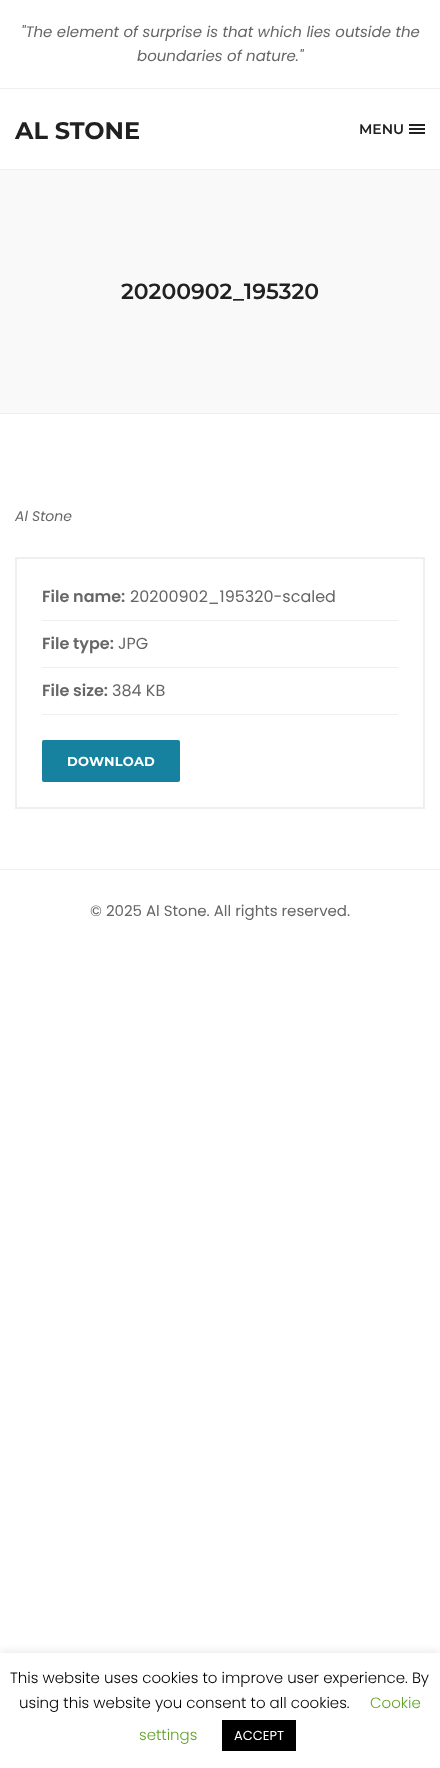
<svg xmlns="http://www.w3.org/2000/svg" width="440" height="1768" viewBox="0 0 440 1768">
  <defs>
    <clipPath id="clip1"><rect x="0" y="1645" width="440" height="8"/></clipPath>
    <filter id="blur1" x="-50%" y="-200%" width="200%" height="500%"><feGaussianBlur stdDeviation="5"/></filter>
  </defs>
  <rect width="100%" height="100%" fill="#ffffff"/>
  <rect x="0" y="88" width="440" height="1" fill="#efefef"/>
  <text x="21" y="37" font-family="Poppins" font-size="15" font-style="italic" fill="#666666">"The element of surprise is that which lies outside the</text>
  <text x="137" y="61" font-family="Poppins" font-size="15" font-style="italic" fill="#666666">boundaries of nature."</text>
  <text x="15" y="139" font-family="Montserrat" font-size="24" font-weight="bold" fill="#212121">AL STONE</text>
  <text x="359" y="134" font-family="Montserrat" font-size="14" font-weight="600" fill="#212121">MENU</text>
  <rect x="409" y="128" width="16" height="2" fill="#212121"/>
  <rect x="409" y="124" width="16" height="2" fill="#212121"/>
  <rect x="409" y="132" width="16" height="2" fill="#212121"/>
  <rect x="0" y="169" width="440" height="1" fill="#efefef"/>
  <rect x="0" y="170" width="440" height="243" fill="#f9f9f9"/>
  <rect x="0" y="413" width="440" height="1" fill="#efefef"/>
  <text x="121" y="299" font-family="Montserrat" font-size="22" font-weight="600" fill="#212121">20200902_195320</text>
  <text x="15" y="521" font-family="Poppins" font-size="14" font-style="italic" fill="#666666">Al Stone</text>
  <rect x="16" y="558" width="408" height="250" fill="none" stroke="#efefef" stroke-width="2"/>
  <text x="42" y="602" font-family="Poppins" font-size="16" font-weight="600" fill="#666666">File name:</text>
  <text x="130" y="602" font-family="Poppins" font-size="16" fill="#666666">20200902_195320-scaled</text>
  <rect x="42" y="620" width="356" height="1" fill="#efefef"/>
  <text x="42" y="649" font-family="Poppins" font-size="16" font-weight="600" fill="#666666">File type:</text>
  <text x="118" y="649" font-family="Poppins" font-size="16" fill="#666666">JPG</text>
  <rect x="42" y="667" width="356" height="1" fill="#efefef"/>
  <text x="42" y="696" font-family="Poppins" font-size="16" font-weight="600" fill="#666666">File size:</text>
  <text x="112" y="696" font-family="Poppins" font-size="16" fill="#666666">384 KB</text>
  <rect x="42" y="714" width="356" height="1" fill="#efefef"/>
  <rect x="42" y="740" width="138" height="42" rx="2" fill="#1682a0"/>
  <text x="67" y="766" font-family="Montserrat" font-size="13" font-weight="bold" letter-spacing="0.25" fill="#ffffff">DOWNLOAD</text>
  <rect x="0" y="869" width="440" height="1" fill="#efefef"/>
  <text x="90" y="916" font-family="Poppins" font-size="15" fill="#666666">© 2025 Al Stone. All rights reserved.</text>
  <g clip-path="url(#clip1)">
    <rect x="0" y="1652" width="440" height="115" fill="#acabab" fill-opacity="0.3" filter="url(#blur1)"/>
  </g>
  <text x="10" y="1683" font-family="Poppins" font-size="15" font-weight="300" fill="#000000">This website uses cookies to improve user experience. By</text>
  <text x="19" y="1708" font-family="Poppins" font-size="15" font-weight="300" fill="#000000">using this website you consent to all cookies.</text>
  <text x="370" y="1708" font-family="Poppins" font-size="15" font-weight="300" fill="#62a329">Cookie</text>
  <text x="139" y="1740" font-family="Poppins" font-size="15" font-weight="300" fill="#62a329">settings</text>
  <rect x="222" y="1720" width="74" height="31" fill="#000000"/>
  <text x="234" y="1740" font-family="Poppins" font-size="13" fill="#ffffff">ACCEPT</text>
</svg>
